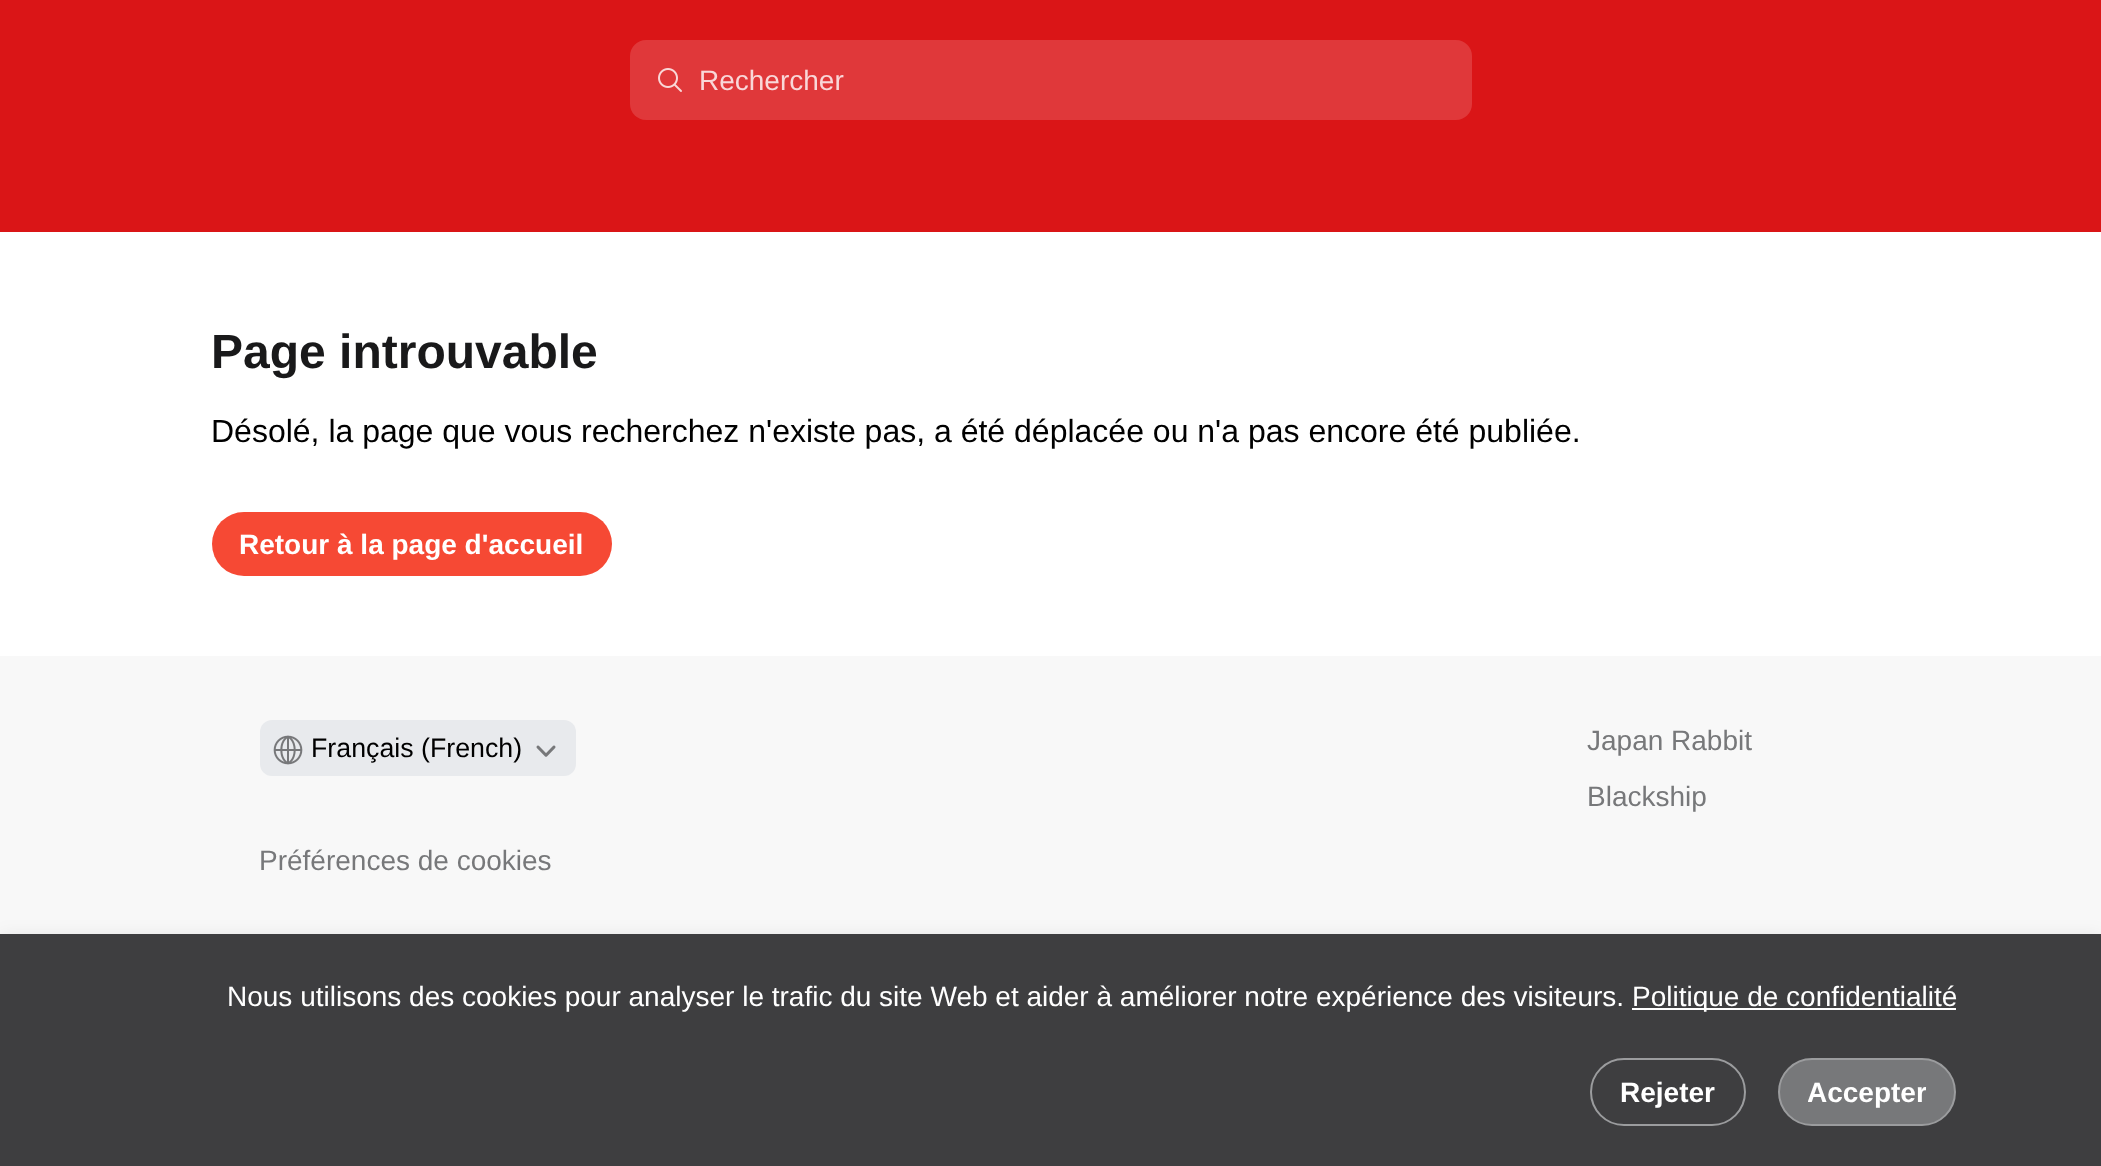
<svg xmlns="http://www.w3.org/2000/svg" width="2101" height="1166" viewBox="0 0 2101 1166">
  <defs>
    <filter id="blur1" x="-50%" y="-200%" width="200%" height="500%"><feGaussianBlur stdDeviation="9"/></filter>
    <clipPath id="clip1"><rect x="1808" y="1074" width="118" height="36"/></clipPath>
  </defs>
  <rect width="100%" height="100%" fill="#ffffff"/>
  <rect x="0" y="0" width="2101" height="232" fill="#da1517"/>
  <rect x="630" y="40" width="842" height="80" rx="16" fill="#e0383a"/>
  <image x="658" y="68" width="24" height="24" href="img1.png"/>
  <text x="699" y="90" font-family="Liberation Sans" font-size="28" fill="#f9d7d8">Rechercher</text>
  <text x="211" y="368" font-family="Liberation Sans" font-size="48" font-weight="bold" fill="#19191a">Page introuvable</text>
  <text x="211" y="442" font-family="Liberation Sans" font-size="32" fill="#000000">Désolé, la page que vous recherchez n'existe pas, a été déplacée ou n'a pas encore été publiée.</text>
  <rect x="212" y="512" width="400" height="64" rx="32" fill="#f64934"/>
  <text x="239" y="554" font-family="Liberation Sans" font-size="28" font-weight="bold" fill="#ffffff">Retour à la page d'accueil</text>
  <rect x="0" y="656" width="2101" height="278" fill="#f8f8f8"/>
  <rect x="260" y="720" width="316" height="56" rx="12" fill="#e8eaed"/>
  <image x="273" y="735" width="30" height="30" href="img2.png"/>
  <text x="311" y="757" font-family="Liberation Sans" font-size="26.75" fill="#000000">Français (French)</text>
  <image x="536" y="745" width="20" height="12" href="img3.png"/>
  <text x="259" y="870" font-family="Liberation Sans" font-size="28" fill="#77787a">Préférences de cookies</text>
  <text x="1587" y="750" font-family="Liberation Sans" font-size="28" fill="#77787a">Japan Rabbit</text>
  <text x="1587" y="806" font-family="Liberation Sans" font-size="28" fill="#77787a">Blackship</text>
  <rect x="0" y="936" width="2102" height="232" fill="#000000" fill-opacity="0.08" filter="url(#blur1)"/>
  <rect x="0" y="934" width="2101" height="232" fill="#3e3e40"/>
  <text x="227" y="1006" font-family="Liberation Sans" font-size="28" fill="#ffffff">Nous utilisons des cookies pour analyser le trafic du site Web et aider à améliorer notre expérience des visiteurs.</text>
  <rect x="1632" y="1008" width="324" height="2" fill="#ffffff"/>
  <text x="1632" y="1006" font-family="Liberation Sans" font-size="28" fill="#ffffff">Politique de confidentialité</text>
  <rect x="1591" y="1059" width="154" height="66" rx="33" fill="none" stroke="#9b9c9e" stroke-width="2"/>
  <text x="1620" y="1102" font-family="Liberation Sans" font-size="28" font-weight="bold" fill="#ffffff">Rejeter</text>
  <rect x="1779" y="1059" width="176" height="66" rx="33" fill="#77787a" stroke="#9b9c9e" stroke-width="2"/>
  <g clip-path="url(#clip1)">
    <text x="1807" y="1102" font-family="Liberation Sans" font-size="28" font-weight="bold" fill="#ffffff">Accepter</text>
  </g>
</svg>
